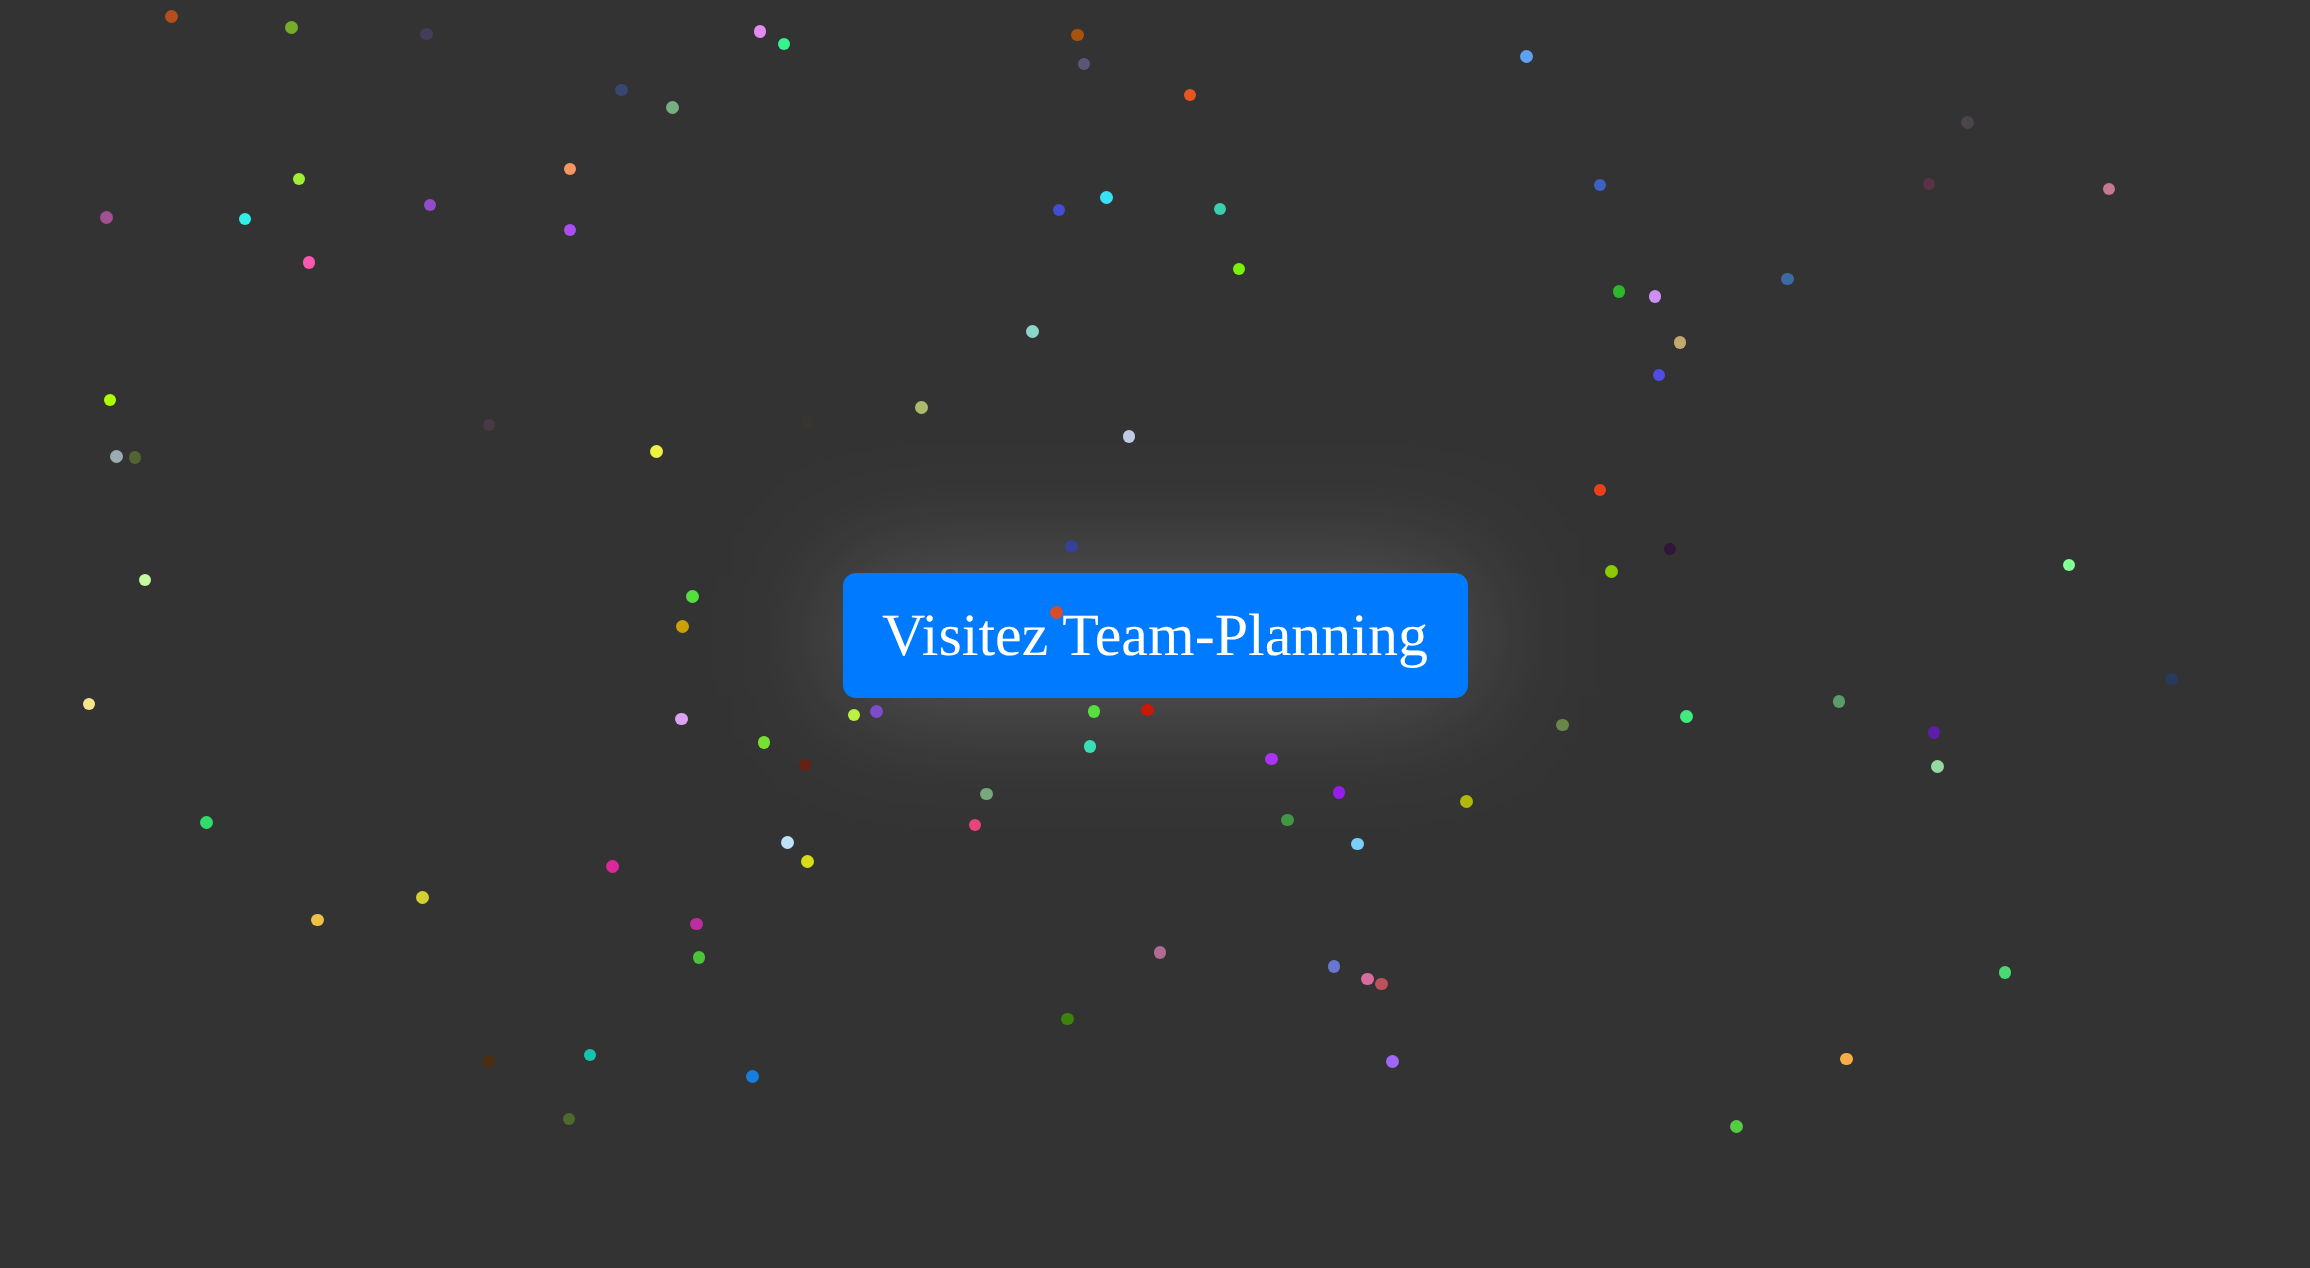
<svg xmlns="http://www.w3.org/2000/svg" width="2310" height="1268" viewBox="0 0 2310 1268">
  <defs>
    <filter id="blur1" x="-50%" y="-200%" width="200%" height="500%"><feGaussianBlur stdDeviation="62.5"/></filter>
  </defs>
  <rect width="100%" height="100%" fill="#333333"/>
  <circle cx="171.5" cy="16.5" r="6.5" fill="#b44e1c"/>
  <circle cx="291.5" cy="27.5" r="6.5" fill="#74ae28"/>
  <rect x="420" y="28" width="13" height="12" rx="6" fill="#443d59"/>
  <rect x="754" y="25" width="12" height="13" rx="6" fill="#e58af5"/>
  <rect x="1071" y="29" width="13" height="12" rx="6" fill="#aa520b"/>
  <circle cx="784" cy="44" r="6" fill="#34f48f"/>
  <circle cx="1084" cy="64" r="6" fill="#5b5677"/>
  <circle cx="1526.5" cy="56.5" r="6.5" fill="#5fa0f1"/>
  <rect x="615" y="84" width="13" height="12" rx="6" fill="#384670"/>
  <circle cx="1190" cy="95" r="6" fill="#e75521"/>
  <circle cx="672.5" cy="107.5" r="6.5" fill="#78af80"/>
  <circle cx="1967.5" cy="122.5" r="6.5" fill="#4b454b"/>
  <circle cx="570" cy="169" r="6" fill="#f69662"/>
  <circle cx="299" cy="179" r="6" fill="#a1ef35"/>
  <circle cx="1600" cy="185" r="6" fill="#3d63c2"/>
  <circle cx="1929" cy="184" r="6" fill="#5b3245"/>
  <circle cx="2109" cy="189" r="6" fill="#c57891"/>
  <circle cx="106.5" cy="217.5" r="6.5" fill="#a24f93"/>
  <circle cx="245" cy="219" r="6" fill="#2ef0e9"/>
  <circle cx="430" cy="205" r="6" fill="#924cc9"/>
  <circle cx="1059" cy="210" r="6" fill="#434dd1"/>
  <circle cx="1106.5" cy="197.5" r="6.5" fill="#38e1f5"/>
  <circle cx="1220" cy="209" r="6" fill="#39cfb0"/>
  <circle cx="570" cy="230" r="6" fill="#aa4df2"/>
  <rect x="303" y="256" width="12" height="13" rx="6" fill="#fb56b0"/>
  <circle cx="1239" cy="269" r="6" fill="#7af108"/>
  <rect x="1781" y="273" width="13" height="12" rx="6" fill="#3c6ba4"/>
  <rect x="1613" y="285" width="12" height="13" rx="6" fill="#2db82b"/>
  <rect x="1649" y="290" width="12" height="13" rx="6" fill="#cc90f1"/>
  <circle cx="1032.5" cy="331.5" r="6.5" fill="#8cd6c9"/>
  <rect x="1674" y="336" width="12" height="13" rx="6" fill="#c2aa6d"/>
  <circle cx="1659" cy="375" r="6" fill="#514ce7"/>
  <circle cx="110" cy="400" r="6" fill="#acfe00"/>
  <rect x="843" y="573" width="625" height="125" rx="13" fill="#ffffff" fill-opacity="0.2" filter="url(#blur1)"/>
  <circle cx="921.5" cy="407.5" r="6.5" fill="#acba6d"/>
  <circle cx="489" cy="425" r="6" fill="#483a44"/>
  <circle cx="807.5" cy="421.5" r="6.5" fill="#393432"/>
  <rect x="1123" y="430" width="12" height="13" rx="6" fill="#c0cae3"/>
  <circle cx="116.5" cy="456.5" r="6.5" fill="#9babb2"/>
  <rect x="129" y="451" width="12" height="13" rx="6" fill="#536434"/>
  <circle cx="656.5" cy="451.5" r="6.5" fill="#eef242"/>
  <circle cx="1600" cy="490" r="6" fill="#e9421b"/>
  <circle cx="1071.5" cy="546.5" r="6.5" fill="#364096"/>
  <circle cx="1670" cy="549" r="6" fill="#301738"/>
  <circle cx="1611.5" cy="571.5" r="6.5" fill="#8ccb03"/>
  <circle cx="2069" cy="565" r="6" fill="#82ff97"/>
  <circle cx="145" cy="580" r="6" fill="#c7f9a1"/>
  <circle cx="692.5" cy="596.5" r="6.5" fill="#54df3f"/>
  <rect x="843" y="573" width="625" height="125" rx="13" fill="#007bff"/>
  <text x="882" y="655" font-family="Liberation Serif" font-size="60" fill="#ffffff">Visitez Team-Planning</text>
  <circle cx="1056.5" cy="612.5" r="6.5" fill="#d84d29"/>
  <circle cx="682.5" cy="626.5" r="6.5" fill="#cda008"/>
  <rect x="2165" y="673" width="13" height="12" rx="6" fill="#293a5e"/>
  <circle cx="89" cy="704" r="6" fill="#f6e68a"/>
  <rect x="675" y="713" width="13" height="12" rx="6" fill="#daa4f3"/>
  <circle cx="854" cy="715" r="6" fill="#baf23f"/>
  <circle cx="876.5" cy="711.5" r="6.5" fill="#7c4dcd"/>
  <rect x="1088" y="705" width="12" height="13" rx="6" fill="#56df3e"/>
  <rect x="1141" y="704" width="13" height="12" rx="6" fill="#c71905"/>
  <rect x="1556" y="719" width="13" height="12" rx="6" fill="#6a874b"/>
  <circle cx="1686.5" cy="716.5" r="6.5" fill="#41eb7f"/>
  <rect x="1833" y="695" width="12" height="13" rx="6" fill="#599c69"/>
  <rect x="1928" y="726" width="12" height="13" rx="6" fill="#5d1da8"/>
  <rect x="758" y="736" width="12" height="13" rx="6" fill="#77e132"/>
  <rect x="1084" y="740" width="12" height="13" rx="6" fill="#3adeb6"/>
  <circle cx="805" cy="765" r="6" fill="#632212"/>
  <rect x="1265" y="753" width="13" height="12" rx="6" fill="#ac32f5"/>
  <circle cx="1937.5" cy="766.5" r="6.5" fill="#95d8a1"/>
  <rect x="980" y="788" width="13" height="12" rx="6" fill="#77a87e"/>
  <rect x="1333" y="786" width="12" height="13" rx="6" fill="#951fea"/>
  <circle cx="1466.5" cy="801.5" r="6.5" fill="#b0b90a"/>
  <circle cx="206.5" cy="822.5" r="6.5" fill="#30dc6b"/>
  <circle cx="975" cy="825" r="6" fill="#e6457a"/>
  <rect x="1281" y="814" width="13" height="12" rx="6" fill="#409845"/>
  <circle cx="787.5" cy="842.5" r="6.5" fill="#bee2fb"/>
  <rect x="1351" y="838" width="13" height="12" rx="6" fill="#79cffb"/>
  <circle cx="612.5" cy="866.5" r="6.5" fill="#dd289b"/>
  <circle cx="807.5" cy="861.5" r="6.5" fill="#d8dd17"/>
  <circle cx="422.5" cy="897.5" r="6.5" fill="#d5d031"/>
  <rect x="311" y="914" width="13" height="12" rx="6" fill="#efc047"/>
  <rect x="690" y="918" width="13" height="12" rx="6" fill="#bc2ea0"/>
  <rect x="693" y="951" width="12" height="13" rx="6" fill="#4cc339"/>
  <rect x="1154" y="946" width="12" height="13" rx="6" fill="#b06b91"/>
  <rect x="1328" y="960" width="12" height="13" rx="6" fill="#6977d2"/>
  <rect x="1361" y="973" width="13" height="12" rx="6" fill="#db6a9e"/>
  <rect x="1375" y="978" width="13" height="12" rx="6" fill="#bc515a"/>
  <rect x="1999" y="966" width="12" height="13" rx="6" fill="#49d971"/>
  <rect x="1061" y="1013" width="13" height="12" rx="6" fill="#3c820d"/>
  <rect x="483" y="1055" width="12" height="13" rx="6" fill="#4a2e12"/>
  <circle cx="590" cy="1055" r="6" fill="#15c4af"/>
  <circle cx="1392.5" cy="1061.5" r="6.5" fill="#9e67f5"/>
  <rect x="1840" y="1053" width="13" height="12" rx="6" fill="#f9ad46"/>
  <circle cx="752.5" cy="1076.5" r="6.5" fill="#157edf"/>
  <circle cx="569" cy="1119" r="6" fill="#4f692a"/>
  <circle cx="1736.5" cy="1126.5" r="6.5" fill="#55cd43"/>
</svg>
